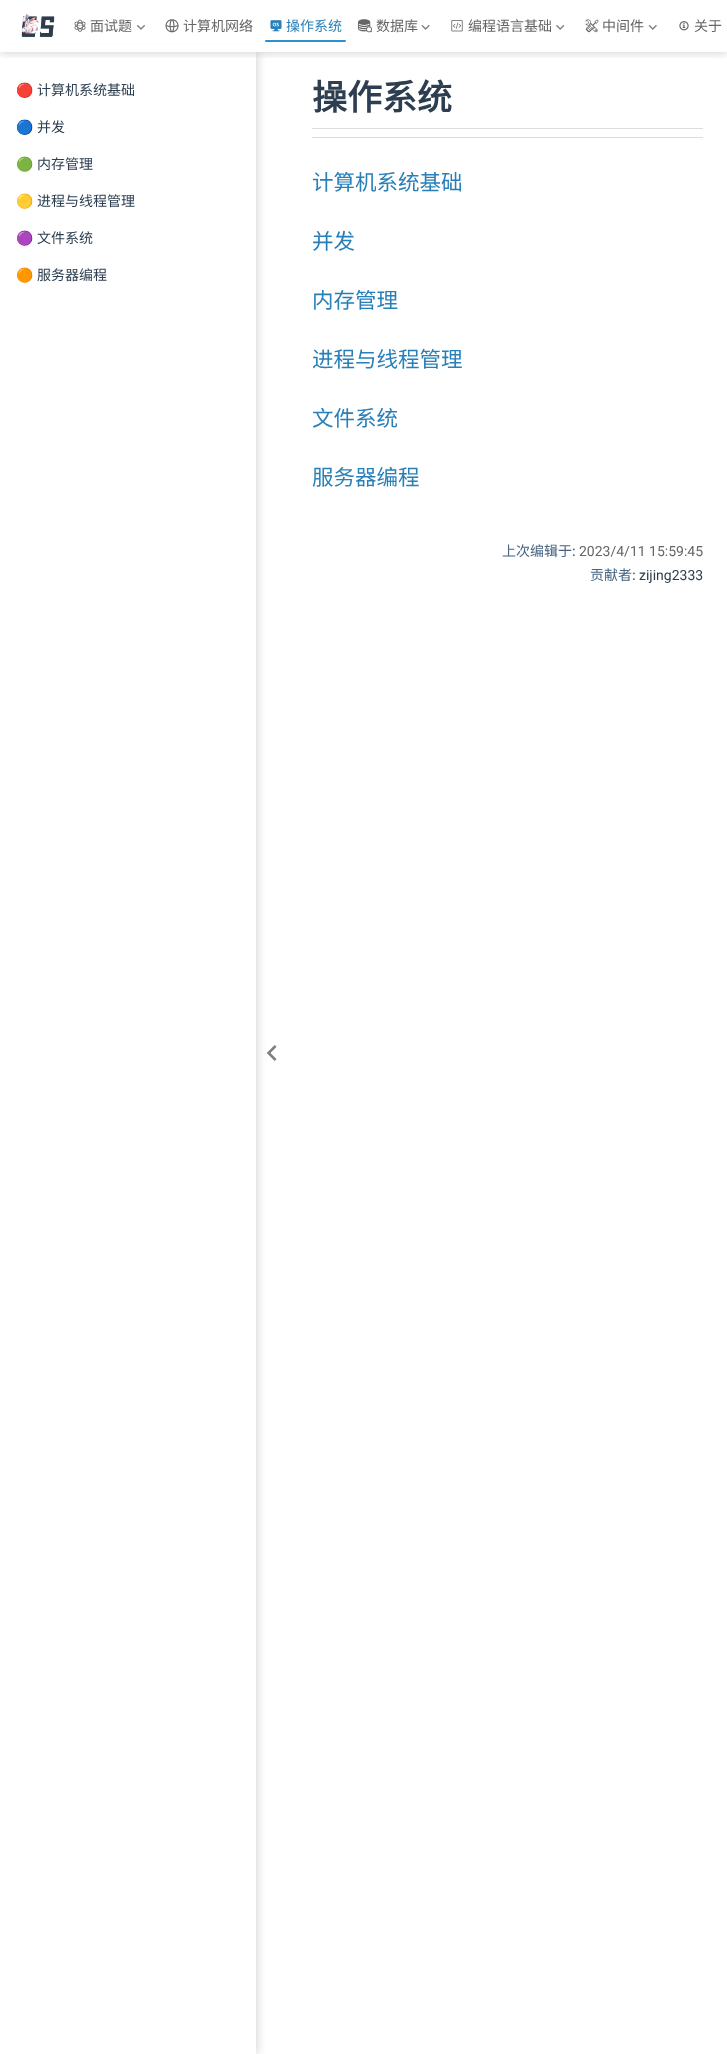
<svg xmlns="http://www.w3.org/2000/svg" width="727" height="2054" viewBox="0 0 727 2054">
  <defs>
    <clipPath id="clip1"><rect x="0" y="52" width="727" height="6"/></clipPath>
    <filter id="blur1" x="-50%" y="-200%" width="200%" height="500%"><feGaussianBlur stdDeviation="4"/></filter>
    <clipPath id="clip2"><path d="M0 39H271V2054H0ZM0 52H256V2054H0Z" clip-rule="evenodd"/></clipPath>
  </defs>
  <rect width="100%" height="100%" fill="#ffffff"/>
  <g clip-path="url(#clip1)">
    <rect x="0" y="2" width="727" height="52" fill="#000000" fill-opacity="0.15" filter="url(#blur1)"/>
  </g>
  <g clip-path="url(#clip2)">
    <rect x="2" y="52" width="256" height="2002" fill="#000000" fill-opacity="0.15" filter="url(#blur1)"/>
  </g>
  <rect x="0" y="46" width="262" height="6" fill="#ffffff" fill-opacity="0.9"/>
  <image x="21" y="13" width="34" height="25" href="img1.png"/>
  <image x="74" y="19" width="12" height="13" href="img2.png"/>
  <text x="90" y="31" font-family="Noto Sans CJK SC" font-size="14" fill="#666666">面试题</text>
  <image x="136" y="24" width="9" height="6" href="img3.png"/>
  <image x="165" y="19" width="14" height="14" href="img4.png"/>
  <text x="183" y="31" font-family="Noto Sans CJK SC" font-size="14" fill="#666666">计算机网络</text>
  <image x="270" y="20" width="12" height="12" href="img5.png"/>
  <text x="286" y="31" font-family="Noto Sans CJK SC" font-size="14" fill="#2980b9">操作系统</text>
  <rect x="265" y="40" width="81" height="2" rx="1" fill="#2e90d0"/>
  <image x="358" y="19" width="14" height="14" href="img6.png"/>
  <text x="376" y="31" font-family="Noto Sans CJK SC" font-size="14" fill="#666666">数据库</text>
  <image x="421" y="24" width="9" height="6" href="img7.png"/>
  <image x="451" y="20" width="12" height="12" href="img8.png"/>
  <text x="468" y="31" font-family="Noto Sans CJK SC" font-size="14" fill="#666666">编程语言基础</text>
  <image x="556" y="24" width="9" height="6" href="img9.png"/>
  <image x="585" y="19" width="14" height="14" href="img10.png"/>
  <text x="602" y="31" font-family="Noto Sans CJK SC" font-size="14" fill="#666666">中间件</text>
  <image x="648" y="24" width="9" height="6" href="img11.png"/>
  <image x="679" y="21" width="10" height="10" href="img12.png"/>
  <text x="694" y="31" font-family="Noto Sans CJK SC" font-size="14" fill="#666666">关于</text>
  <text x="16" y="95" font-family="Noto Color Emoji" font-size="14" fill="#2c3e50">🔴</text>
  <text x="37" y="95" font-family="Noto Sans CJK SC" font-size="14" fill="#2c3e50">计算机系统基础</text>
  <text x="16" y="132" font-family="Noto Color Emoji" font-size="14" fill="#2c3e50">🔵</text>
  <text x="37" y="132" font-family="Noto Sans CJK SC" font-size="14" fill="#2c3e50">并发</text>
  <text x="16" y="169" font-family="Noto Color Emoji" font-size="14" fill="#2c3e50">🟢</text>
  <text x="37" y="169" font-family="Noto Sans CJK SC" font-size="14" fill="#2c3e50">内存管理</text>
  <text x="16" y="206" font-family="Noto Color Emoji" font-size="14" fill="#2c3e50">🟡</text>
  <text x="37" y="206" font-family="Noto Sans CJK SC" font-size="14" fill="#2c3e50">进程与线程管理</text>
  <text x="16" y="243" font-family="Noto Color Emoji" font-size="14" fill="#2c3e50">🟣</text>
  <text x="37" y="243" font-family="Noto Sans CJK SC" font-size="14" fill="#2c3e50">文件系统</text>
  <text x="16" y="280" font-family="Noto Color Emoji" font-size="14" fill="#2c3e50">🟠</text>
  <text x="37" y="280" font-family="Noto Sans CJK SC" font-size="14" fill="#2c3e50">服务器编程</text>
  <text x="312" y="110" font-family="Noto Sans CJK SC" font-size="35" font-weight="bold" fill="#2c3e50">操作系统</text>
  <rect x="312" y="128" width="391" height="1" fill="#dddddd"/>
  <rect x="312" y="137" width="391" height="1" fill="#dddddd"/>
  <text x="312" y="190" font-family="Noto Sans CJK SC" font-size="21.5" fill="#2980b9">计算机系统基础</text>
  <text x="312" y="249" font-family="Noto Sans CJK SC" font-size="21.5" fill="#2980b9">并发</text>
  <text x="312" y="308" font-family="Noto Sans CJK SC" font-size="21.5" fill="#2980b9">内存管理</text>
  <text x="312" y="367" font-family="Noto Sans CJK SC" font-size="21.5" fill="#2980b9">进程与线程管理</text>
  <text x="312" y="426" font-family="Noto Sans CJK SC" font-size="21.5" fill="#2980b9">文件系统</text>
  <text x="312" y="485" font-family="Noto Sans CJK SC" font-size="21.5" fill="#2980b9">服务器编程</text>
  <text x="502" y="556" font-family="Noto Sans CJK SC" font-size="14" fill="#476582">上次编辑于</text>
  <text x="572" y="556" font-family="Roboto" font-size="14" font-weight="500" fill="#476582">:</text>
  <text x="579" y="556" font-family="Roboto" font-size="14" fill="#666666">2023/4/11 15:59:45</text>
  <text x="590" y="580" font-family="Noto Sans CJK SC" font-size="14" fill="#476582">贡献者</text>
  <text x="632" y="580" font-family="Roboto" font-size="14" font-weight="500" fill="#476582">:</text>
  <text x="639" y="580" font-family="Roboto" font-size="14" fill="#2c3e50">zijing2333</text>
  <image x="266" y="1045" width="11" height="16" href="img13.png"/>
</svg>
